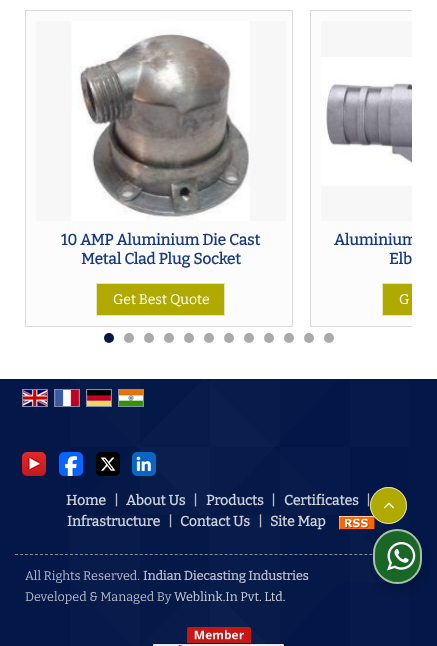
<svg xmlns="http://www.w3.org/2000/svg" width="437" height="646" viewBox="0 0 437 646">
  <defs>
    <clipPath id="clip1"><rect x="25" y="10" width="387" height="317"/></clipPath>
    <filter id="blur1" x="-50%" y="-200%" width="200%" height="500%"><feGaussianBlur stdDeviation="4"/></filter>
  </defs>
  <rect width="100%" height="100%" fill="#ffffff"/>
  <rect x="25.5" y="10.5" width="267" height="316" fill="#fcfcfc" stroke="#dbdbdb"/>
  <rect x="36" y="21" width="250" height="200" fill="#f7f7f7"/>
  <image x="71" y="21" width="179" height="200" href="img1.png"/>
  <text x="61" y="245" font-family="Bitter" font-size="15.4" font-weight="bold" fill="#183b80">10 AMP Aluminium Die Cast</text>
  <text x="81" y="264" font-family="Bitter" font-size="15.4" font-weight="bold" fill="#183b80">Metal Clad Plug Socket</text>
  <rect x="96.5" y="283.5" width="128" height="32" fill="#b0aa00" stroke="#e7e6b3"/>
  <text x="113" y="304" font-family="Bitter" font-size="14" font-weight="100" fill="#ffffff">Get Best Quote</text>
  <rect x="311" y="11" width="101" height="315" fill="#fcfcfc"/>
  <g clip-path="url(#clip1)">
    <rect x="310.5" y="10.5" width="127" height="316" fill="none" stroke="#dbdbdb"/>
  </g>
  <rect x="321" y="21" width="91" height="200" fill="#f7f7f7"/>
  <image x="321" y="57" width="91" height="129" href="img2.png"/>
  <g clip-path="url(#clip1)">
    <text x="334" y="245" font-family="Bitter" font-size="15.4" font-weight="bold" fill="#183b80">Aluminium</text>
  </g>
  <text x="389" y="264" font-family="Bitter" font-size="15.4" font-weight="bold" fill="#183b80">Elb</text>
  <rect x="383" y="284" width="29" height="31" fill="#b0aa00"/>
  <g clip-path="url(#clip1)">
    <rect x="382.5" y="283.5" width="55" height="32" fill="none" stroke="#e7e6b3"/>
  </g>
  <text x="399" y="304" font-family="Bitter" font-size="14" font-weight="100" fill="#ffffff">G</text>
  <circle cx="109" cy="338" r="5" fill="#031748"/>
  <circle cx="129" cy="338" r="5" fill="#aaaaaa"/>
  <circle cx="149" cy="338" r="5" fill="#aaaaaa"/>
  <circle cx="169" cy="338" r="5" fill="#aaaaaa"/>
  <circle cx="189" cy="338" r="5" fill="#aaaaaa"/>
  <circle cx="209" cy="338" r="5" fill="#aaaaaa"/>
  <circle cx="229" cy="338" r="5" fill="#aaaaaa"/>
  <circle cx="249" cy="338" r="5" fill="#aaaaaa"/>
  <circle cx="269" cy="338" r="5" fill="#aaaaaa"/>
  <circle cx="289" cy="338" r="5" fill="#aaaaaa"/>
  <circle cx="309" cy="338" r="5" fill="#aaaaaa"/>
  <circle cx="329" cy="338" r="5" fill="#aaaaaa"/>
  <rect x="0" y="379" width="437" height="267" fill="#031748"/>
  <image x="68" y="379" width="341" height="267" href="img3.png"/>
  <rect x="22.5" y="389.5" width="25" height="17" fill="none" stroke="#818ba4"/>
  <rect x="54.5" y="389.5" width="25" height="17" fill="none" stroke="#ffffff" stroke-opacity="0.5"/>
  <rect x="86.5" y="389.5" width="25" height="17" fill="none" stroke="#ffffff" stroke-opacity="0.5"/>
  <rect x="118.5" y="389.5" width="25" height="17" fill="none" stroke="#ffffff" stroke-opacity="0.5"/>
  <image x="23" y="390" width="24" height="16" href="img4.png"/>
  <image x="55" y="390" width="24" height="16" href="img5.png"/>
  <image x="87" y="390" width="24" height="16" href="img6.png"/>
  <image x="119" y="390" width="24" height="16" href="img7.png"/>
  <image x="22" y="452" width="24" height="24" href="img8.png"/>
  <image x="59" y="452" width="24" height="24" href="img9.png"/>
  <image x="96" y="452" width="24" height="24" href="img10.png"/>
  <image x="132" y="452" width="24" height="24" href="img11.png"/>
  <text x="66" y="505" font-family="Bitter" font-size="14" font-weight="bold" fill="#cdd1db">Home</text>
  <text x="114" y="505" font-family="Bitter" font-size="14" font-weight="bold" fill="#b4bac8">|</text>
  <text x="126" y="505" font-family="Bitter" font-size="14" font-weight="bold" fill="#cdd1db">About Us</text>
  <text x="193" y="505" font-family="Bitter" font-size="14" font-weight="bold" fill="#b4bac8">|</text>
  <text x="206" y="505" font-family="Bitter" font-size="14" font-weight="bold" fill="#cdd1db">Products</text>
  <text x="271" y="505" font-family="Bitter" font-size="14" font-weight="bold" fill="#b4bac8">|</text>
  <text x="284" y="505" font-family="Bitter" font-size="14" font-weight="bold" fill="#cdd1db">Certificates</text>
  <text x="366" y="505" font-family="Bitter" font-size="14" font-weight="bold" fill="#b4bac8">|</text>
  <text x="67" y="526" font-family="Bitter" font-size="14" font-weight="bold" fill="#cdd1db">Infrastructure</text>
  <text x="168" y="526" font-family="Bitter" font-size="14" font-weight="bold" fill="#b4bac8">|</text>
  <text x="180" y="526" font-family="Bitter" font-size="14" font-weight="bold" fill="#cdd1db">Contact Us</text>
  <text x="258" y="526" font-family="Bitter" font-size="14" font-weight="bold" fill="#b4bac8">|</text>
  <text x="270" y="526" font-family="Bitter" font-size="14" font-weight="bold" fill="#cdd1db">Site Map</text>
  <image x="339" y="516" width="36" height="14" href="img12.png"/>
  <path d="M15 554.5H422" fill="none" stroke="#ffffff" stroke-opacity="0.5" stroke-dasharray="3 1.99"/>
  <text x="25" y="580" font-family="Bitter" font-size="12.6" font-weight="100" fill="#b4bac8">All Rights Reserved.</text>
  <text x="143" y="580" font-family="Bitter" font-size="12.6" font-weight="bold" fill="#b4bac8">Indian Diecasting Industries</text>
  <text x="25" y="601" font-family="Bitter" font-size="12.6" font-weight="100" fill="#b4bac8">Developed &amp; Managed By</text>
  <text x="174" y="601" font-family="Bitter" font-size="12.6" font-weight="100" fill="#cdd1db">Weblink.In Pvt. Ltd.</text>
  <image x="152" y="627" width="133" height="19" href="img13.png"/>
  <circle cx="388.5" cy="505.5" r="18.5" fill="#b0aa00"/>
  <circle cx="388.5" cy="505.5" r="18" fill="none" stroke="#ffffff" stroke-opacity="0.7"/>
  <image x="384" y="502" width="10" height="7" href="img14.png"/>
  <rect x="371" y="533" width="53" height="59" rx="26.5" fill="#000000" fill-opacity="0.14" filter="url(#blur1)"/>
  <rect x="373" y="529" width="49" height="55" rx="24.5" fill="#196626"/>
  <rect x="374" y="530" width="47" height="53" rx="23.5" fill="none" stroke="#ffffff" stroke-opacity="0.6" stroke-width="2"/>
  <image x="387" y="542" width="29" height="29" href="img15.png"/>
</svg>
